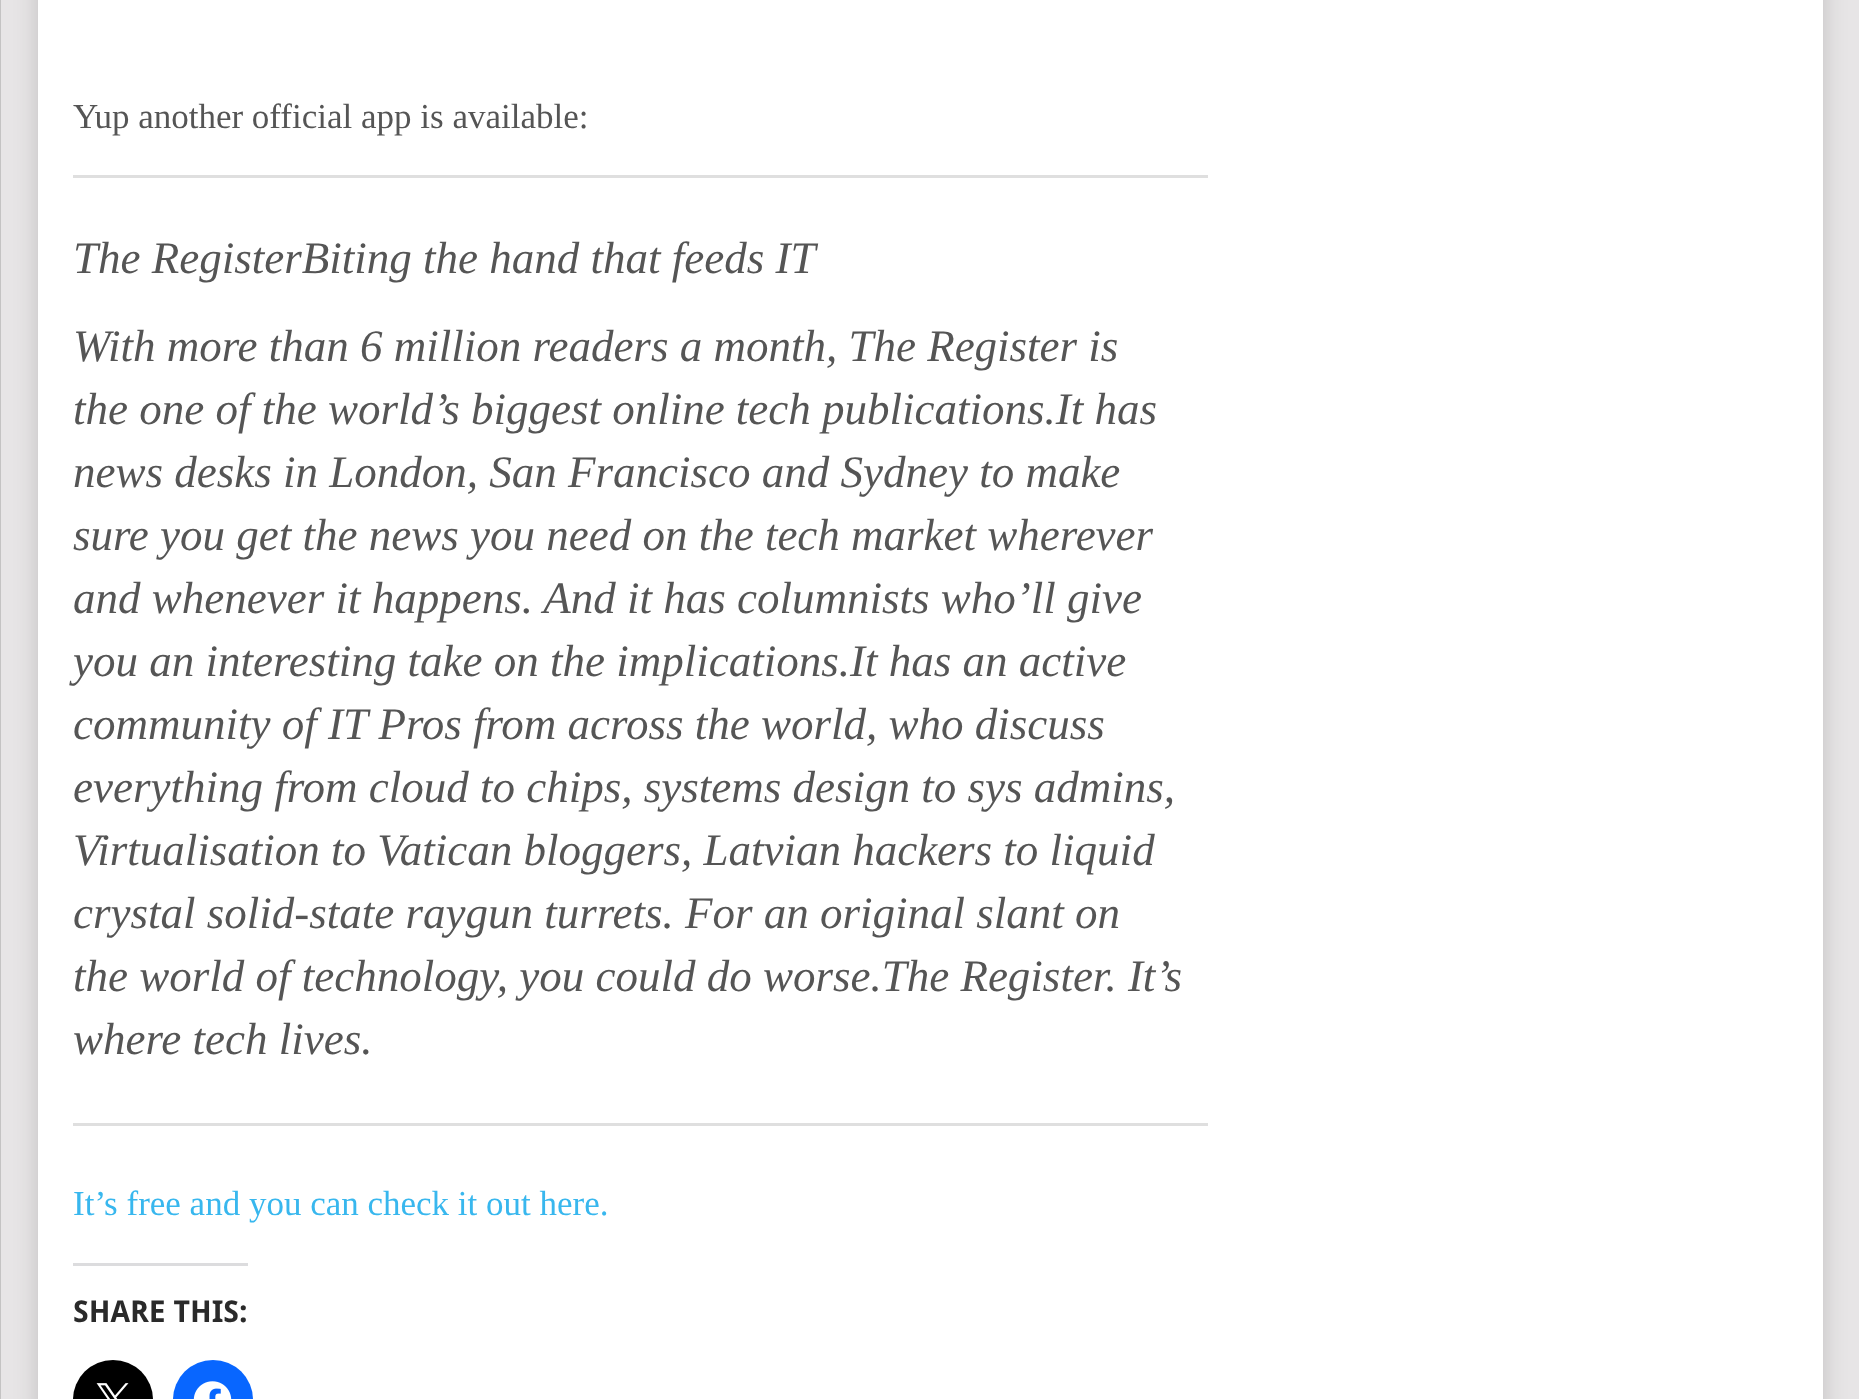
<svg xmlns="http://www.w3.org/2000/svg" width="1859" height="1399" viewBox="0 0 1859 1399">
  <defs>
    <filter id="blur1" x="-50%" y="-200%" width="200%" height="500%"><feGaussianBlur stdDeviation="12.5"/></filter>
  </defs>
  <rect width="100%" height="100%" fill="#e7e5e6"/>
  <rect x="38" y="-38" width="1785" height="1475" fill="#323232" fill-opacity="0.17" filter="url(#blur1)"/>
  <rect x="38" y="0" width="1785" height="1399" fill="#ffffff"/>
  <rect x="0" y="0" width="1" height="1399" fill="#c4c3c3"/>
  <text x="73" y="128" font-family="Liberation Serif" font-size="35" fill="#555555">Yup another official app is available:</text>
  <rect x="73" y="175" width="1135" height="3" fill="#dfdfdf"/>
  <rect x="73" y="1123" width="1135" height="3" fill="#dfdfdf"/>
  <text x="73" y="273" font-family="Liberation Serif" font-size="45" font-style="italic" fill="#555555">The RegisterBiting the hand that feeds IT</text>
  <text x="73" y="361" font-family="Liberation Serif" font-size="45" font-style="italic" fill="#555555">With more than 6 million readers a month, The Register is</text>
  <text x="73" y="424" font-family="Liberation Serif" font-size="45" font-style="italic" fill="#555555">the one of the world’s biggest online tech publications.It has</text>
  <text x="73" y="487" font-family="Liberation Serif" font-size="45" font-style="italic" fill="#555555">news desks in London, San Francisco and Sydney to make</text>
  <text x="73" y="550" font-family="Liberation Serif" font-size="45" font-style="italic" fill="#555555">sure you get the news you need on the tech market wherever</text>
  <text x="73" y="613" font-family="Liberation Serif" font-size="45" font-style="italic" fill="#555555">and whenever it happens. And it has columnists who’ll give</text>
  <text x="73" y="676" font-family="Liberation Serif" font-size="45" font-style="italic" fill="#555555">you an interesting take on the implications.It has an active</text>
  <text x="73" y="739" font-family="Liberation Serif" font-size="45" font-style="italic" fill="#555555">community of IT Pros from across the world, who discuss</text>
  <text x="73" y="802" font-family="Liberation Serif" font-size="45" font-style="italic" fill="#555555">everything from cloud to chips, systems design to sys admins,</text>
  <text x="73" y="865" font-family="Liberation Serif" font-size="45" font-style="italic" fill="#555555">Virtualisation to Vatican bloggers, Latvian hackers to liquid</text>
  <text x="73" y="928" font-family="Liberation Serif" font-size="45" font-style="italic" fill="#555555">crystal solid-state raygun turrets. For an original slant on</text>
  <text x="73" y="991" font-family="Liberation Serif" font-size="45" font-style="italic" fill="#555555">the world of technology, you could do worse.The Register. It’s</text>
  <text x="73" y="1054" font-family="Liberation Serif" font-size="45" font-style="italic" fill="#555555">where tech lives.</text>
  <text x="73" y="1215" font-family="Liberation Serif" font-size="35" fill="#38b7ee">It’s free and you can check it out here.</text>
  <rect x="73" y="1263" width="175" height="3" fill="#dcdcde"/>
  <text x="73" y="1322" font-family="Droid Sans" font-size="30" font-weight="bold" fill="#2a2a2a">SHARE THIS:</text>
  <rect x="73" y="1360" width="80" height="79" rx="40" fill="#000000"/>
  <image x="96" y="1383" width="33" height="16" href="img1.png"/>
  <rect x="173" y="1360" width="80" height="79" rx="40" fill="#0866ff"/>
  <image x="193" y="1381" width="39" height="18" href="img2.png"/>
</svg>
